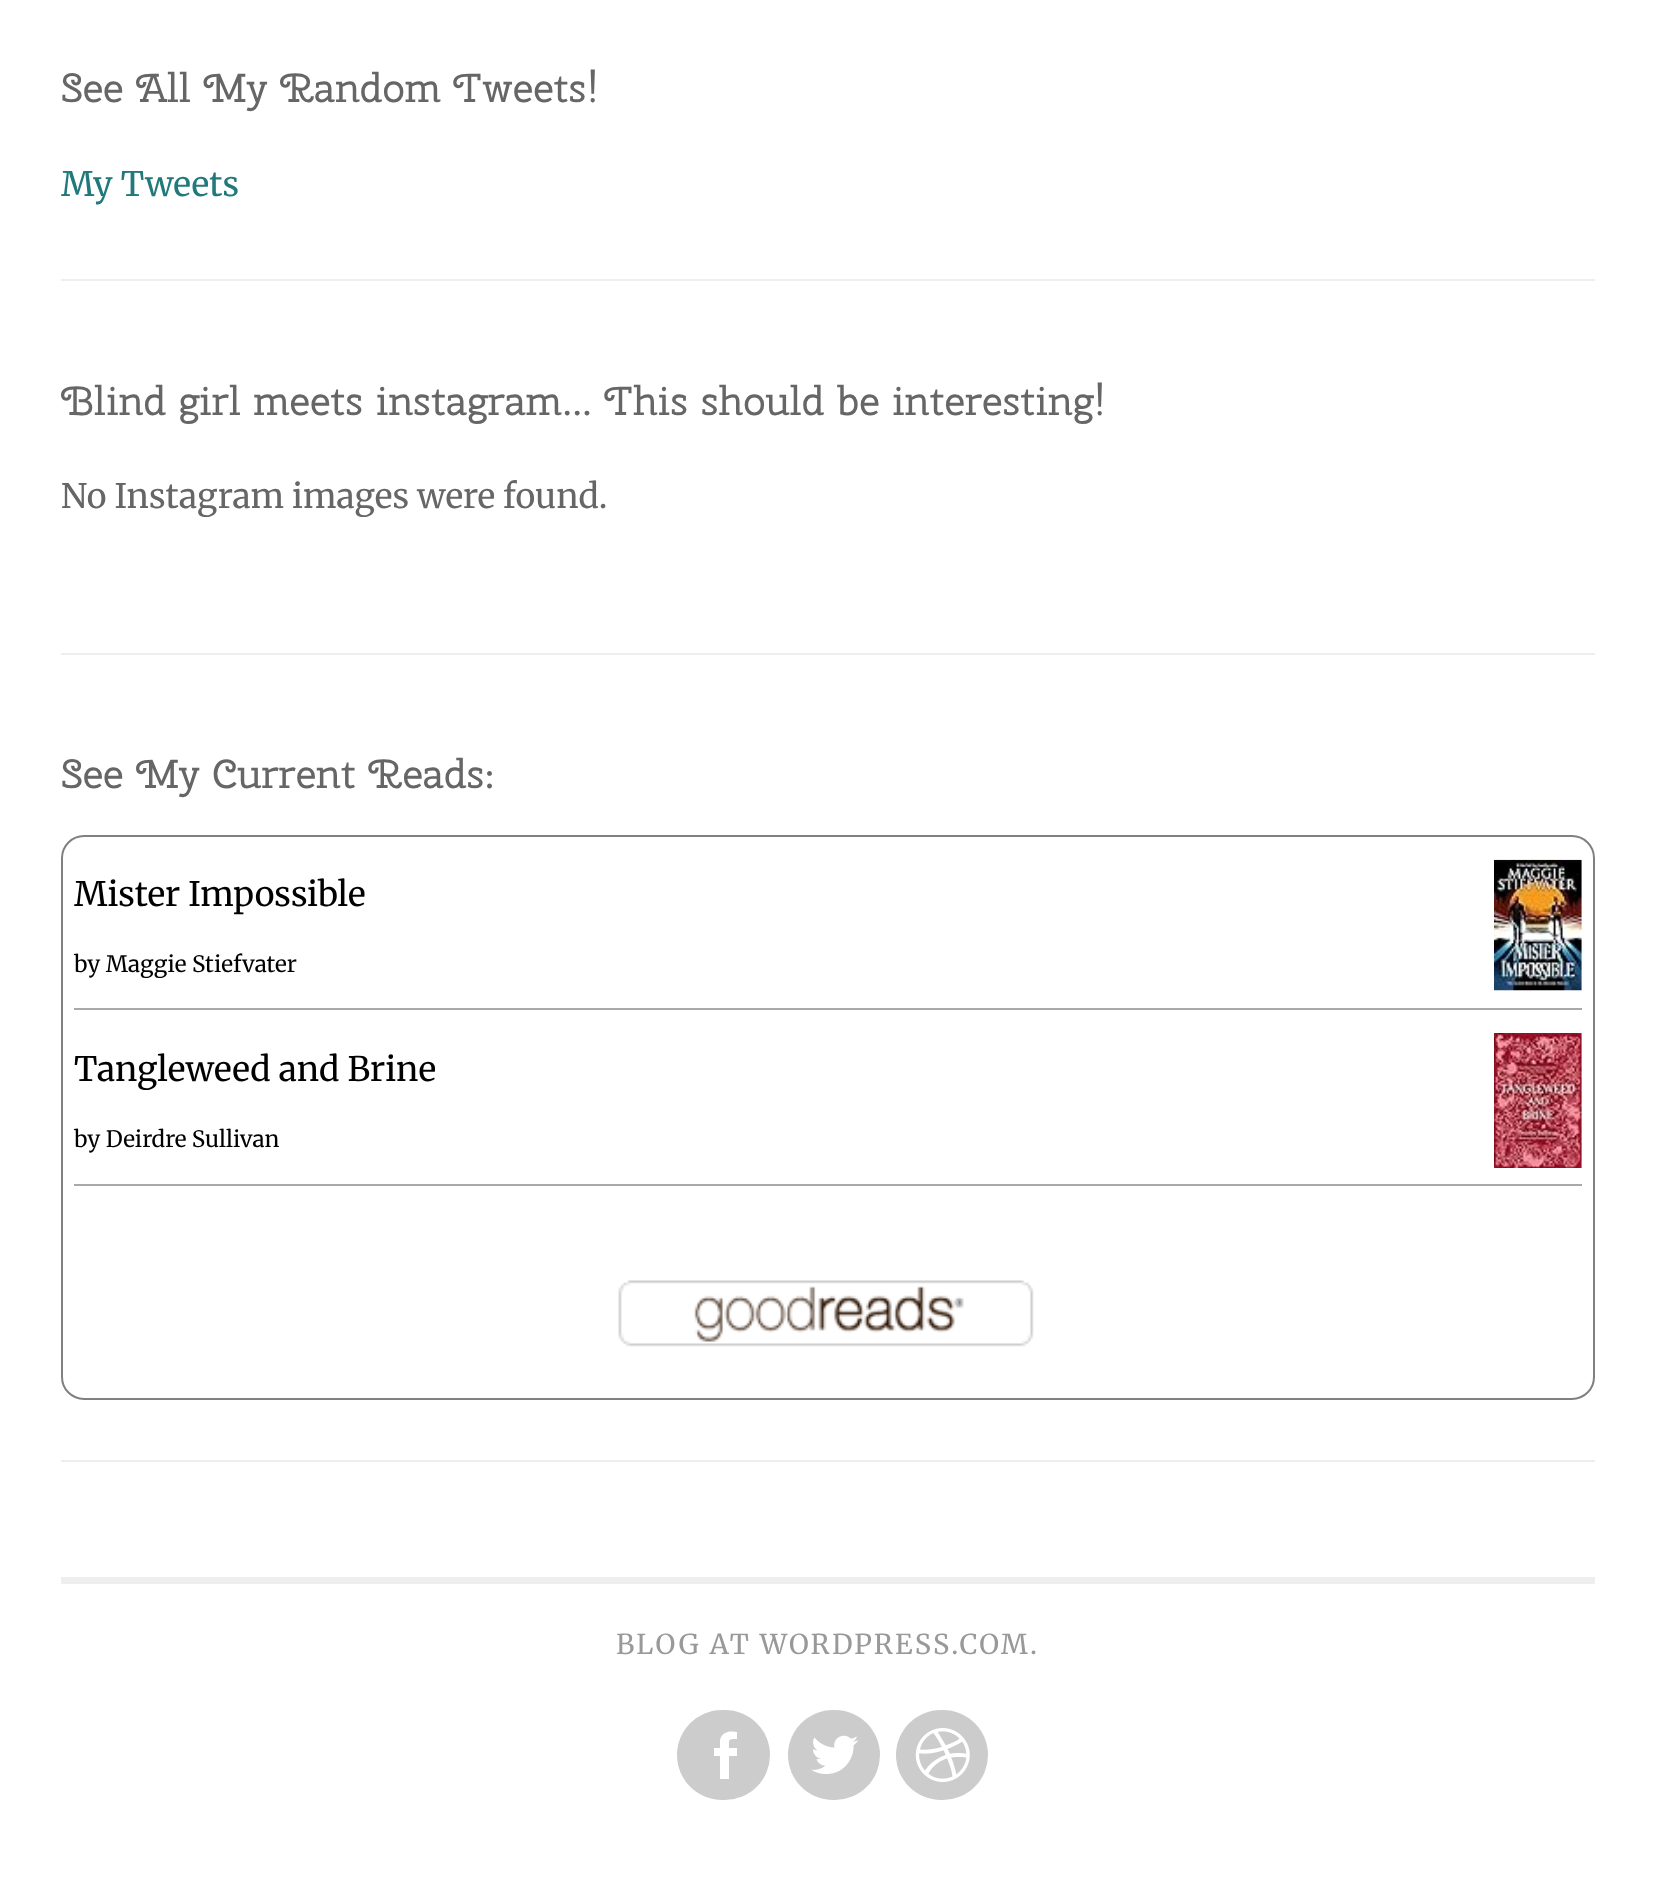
<svg xmlns="http://www.w3.org/2000/svg" width="1655" height="1901" viewBox="0 0 1655 1901">
  <defs>
    <clipPath id="clip1"><rect x="61" y="342" width="1534" height="311"/></clipPath>
  </defs>
  <rect width="100%" height="100%" fill="#ffffff"/>
  <rect x="61" y="279" width="1534" height="2" fill="#eeeeee"/>
  <text x="61" y="102" font-family="Cherry Swash" font-size="40.5" fill="#666666">See All My Random Tweets!</text>
  <text x="61" y="196" font-family="Merriweather" font-size="33.75" fill="#21797c">My Tweets</text>
  <rect x="61" y="653" width="1534" height="2" fill="#eeeeee"/>
  <g clip-path="url(#clip1)">
    <text x="61" y="415" font-family="Cherry Swash" font-size="40.5" fill="#666666">Blind girl meets instagram... This should be interesting!</text>
  </g>
  <text x="61" y="508" font-family="Merriweather" font-size="33.75" fill="#666666">No Instagram images were found.</text>
  <rect x="61" y="1460" width="1534" height="2" fill="#eeeeee"/>
  <text x="61" y="788" font-family="Cherry Swash" font-size="40.5" fill="#666666">See My Current Reads:</text>
  <rect x="62" y="836" width="1532" height="563" rx="22" fill="none" stroke="#808080" stroke-width="2"/>
  <rect x="74" y="1008" width="1508" height="2" fill="#a7aaad"/>
  <text x="74" y="906" font-family="Merriweather" font-size="33.75" fill="#000000">Mister Impossible</text>
  <image x="1494" y="859" width="88" height="132" href="img1.png"/>
  <text x="74" y="972" font-family="Merriweather" font-size="22.5" fill="#000000">by Maggie Stiefvater</text>
  <rect x="74" y="1184" width="1508" height="2" fill="#a7aaad"/>
  <text x="74" y="1081" font-family="Merriweather" font-size="33.75" fill="#000000">Tangleweed and Brine</text>
  <image x="1494" y="1033" width="88" height="135" href="img2.png"/>
  <text x="74" y="1147" font-family="Merriweather" font-size="22.5" fill="#000000">by Deirdre Sullivan</text>
  <image x="618" y="1280" width="416" height="67" href="img3.png"/>
  <rect x="61" y="1577" width="1534" height="7" fill="#eeeeee"/>
  <text x="616" y="1654" font-family="Merriweather" font-size="27.4" letter-spacing="2.25" fill="#999999">BLOG AT WORDPRESS.COM.</text>
  <rect x="677" y="1710" width="93" height="90" rx="45" fill="#cccccc"/>
  <path d="M729 1748H737V1756H729V1779H720V1756H714V1748H720V1740C722 1731 731 1731 737 1732V1739C728 1739 729 1739 729 1748Z" fill="#ffffff"/>
  <rect x="788" y="1710" width="92" height="90" rx="45" fill="#cccccc"/>
  <image x="811" y="1735" width="47" height="39" href="img4.png"/>
  <rect x="896" y="1710" width="92" height="90" rx="45" fill="#cccccc"/>
  <image x="915" y="1728" width="55" height="54" href="img5.png"/>
</svg>
